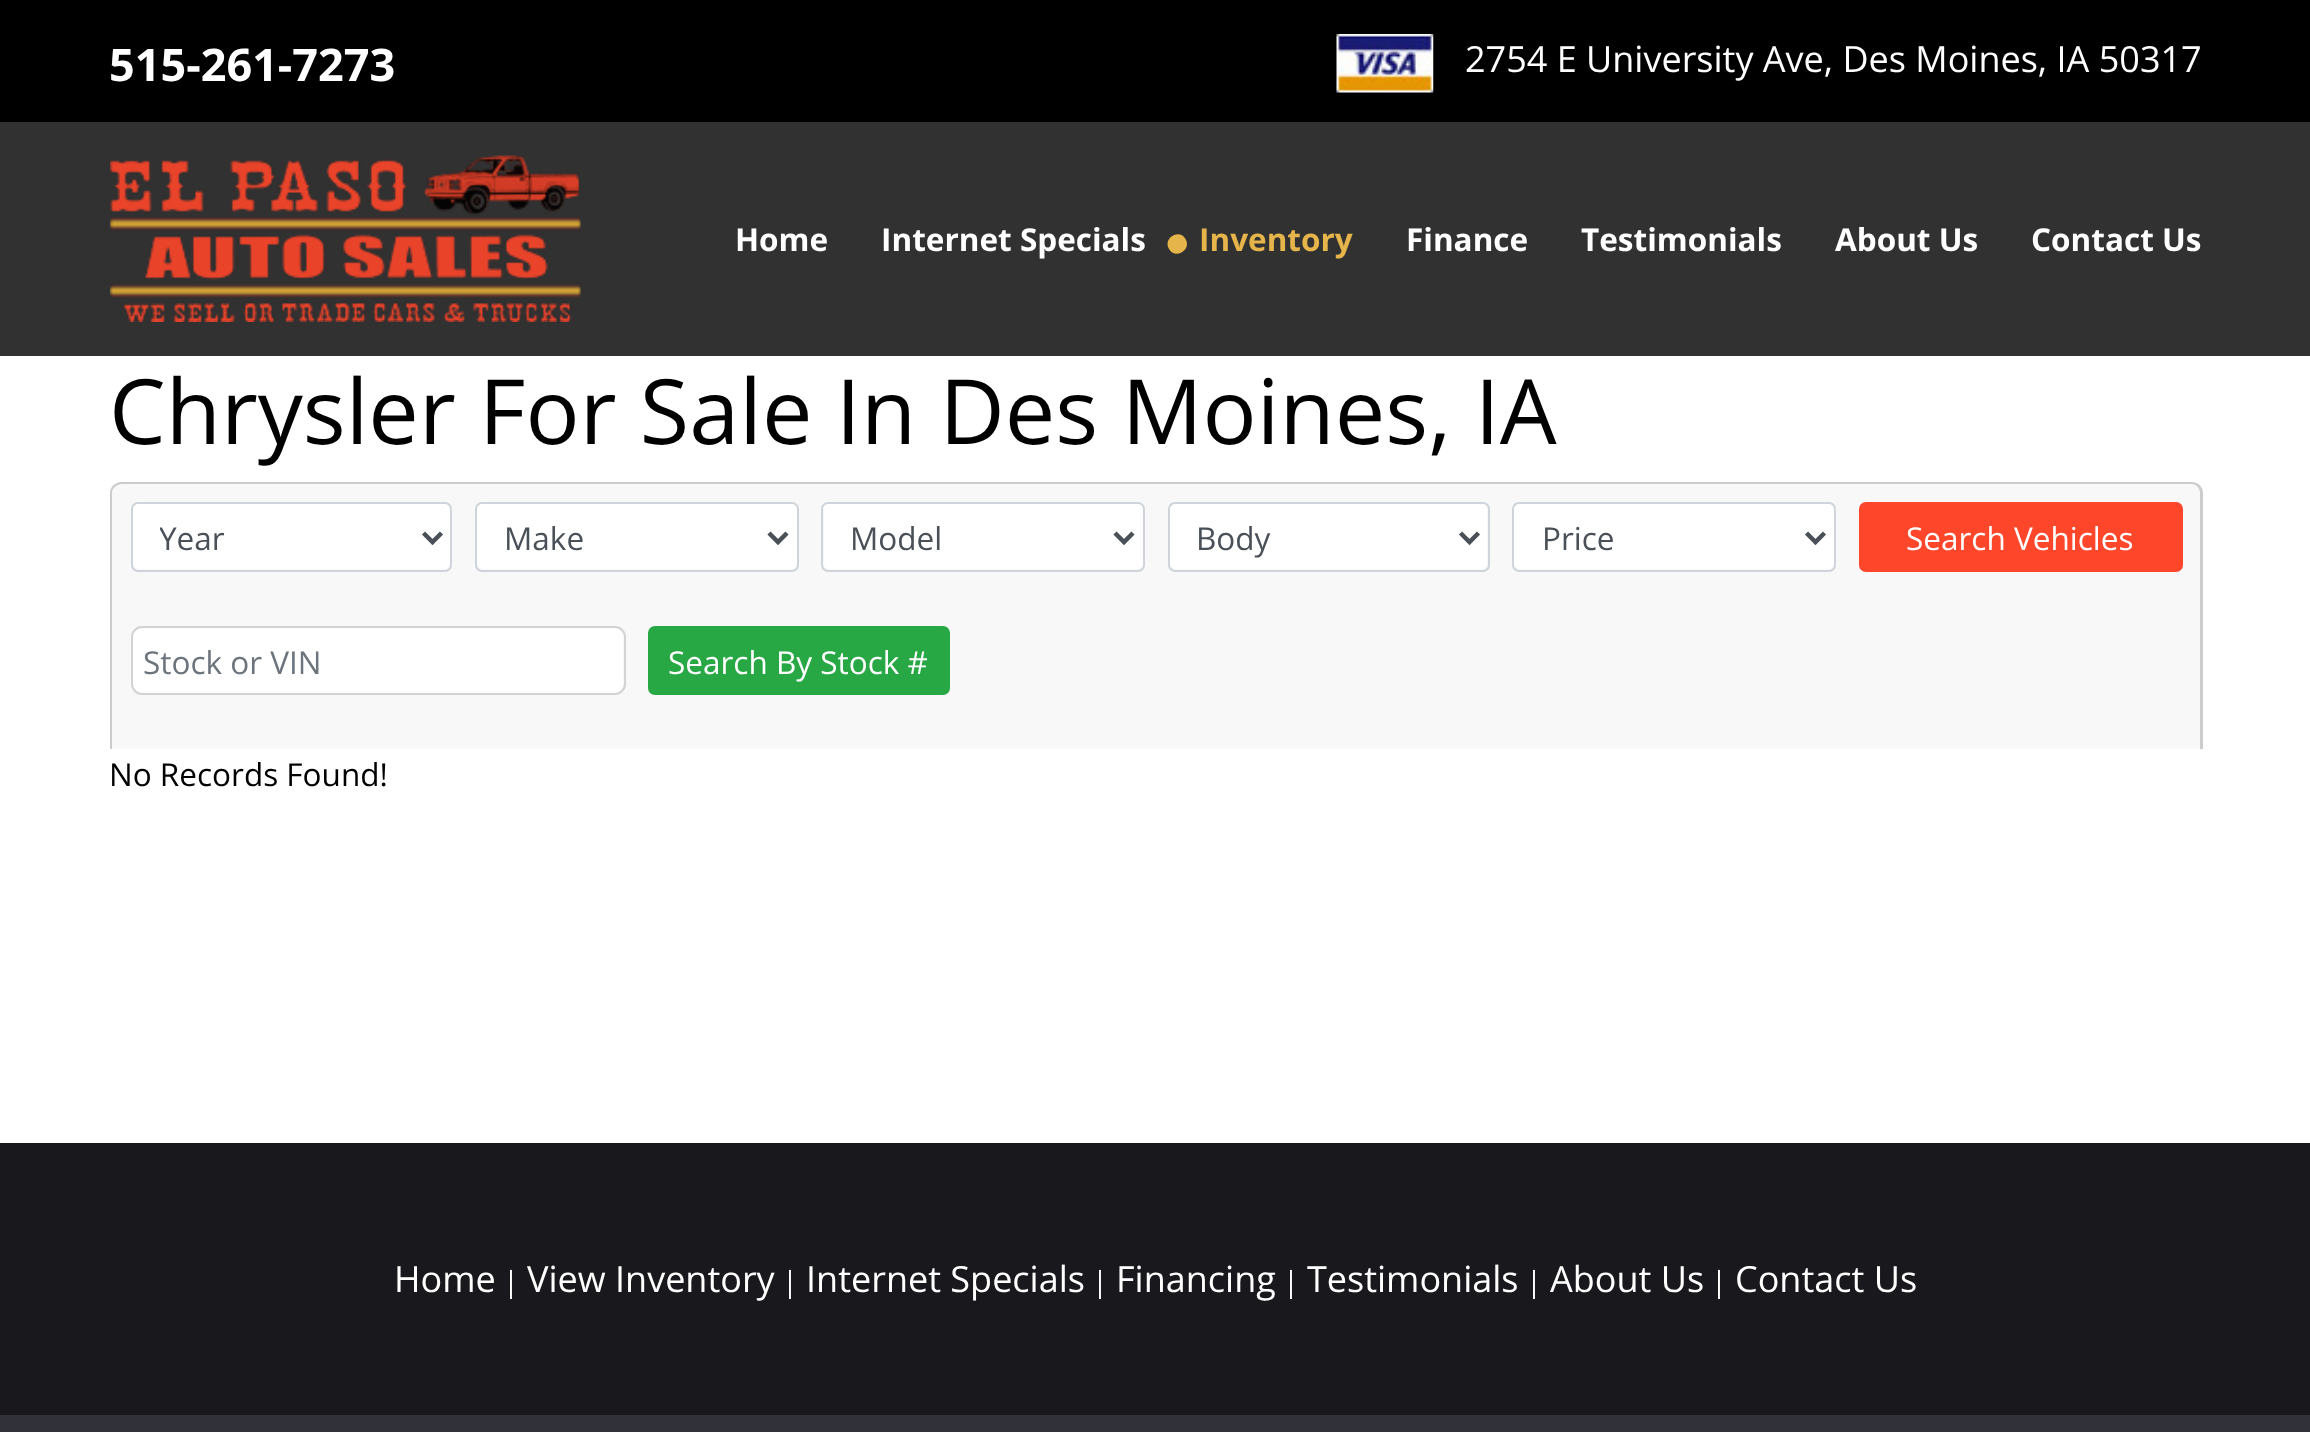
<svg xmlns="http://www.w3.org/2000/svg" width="2310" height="1432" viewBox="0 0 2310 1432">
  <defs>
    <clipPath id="clip1"><rect x="160" y="513" width="236" height="47"/></clipPath>
  </defs>
  <rect width="100%" height="100%" fill="#ffffff"/>
  <rect x="0" y="0" width="2310" height="122" fill="#000000"/>
  <text x="109" y="81" font-family="Open Sans" font-size="45" font-weight="bold" fill="#ffffff">515-261-7273</text>
  <image x="1336" y="34" width="98" height="59" href="img1.png"/>
  <text x="1465" y="72" font-family="Open Sans" font-size="36" fill="#ffffff">2754 E University Ave, Des Moines, IA 50317</text>
  <rect x="0" y="122" width="2310" height="234" fill="#313131"/>
  <image x="110" y="155" width="471" height="167" href="img2.png"/>
  <text x="735" y="251" font-family="Open Sans" font-size="31.5" font-weight="bold" fill="#ffffff">Home</text>
  <text x="881" y="251" font-family="Open Sans" font-size="31.5" font-weight="bold" fill="#ffffff">Internet Specials</text>
  <path d="M1185.5 239C1192 250 1175.5 260 1169 249C1162.5 238 1179.5 228 1185.5 239Z" fill="#e5b44a"/>
  <text x="1199" y="251" font-family="Open Sans" font-size="31.5" font-weight="bold" fill="#e5b44a">Inventory</text>
  <text x="1406" y="251" font-family="Open Sans" font-size="31.5" font-weight="bold" fill="#ffffff">Finance</text>
  <text x="1581" y="251" font-family="Open Sans" font-size="31.5" font-weight="bold" fill="#ffffff">Testimonials</text>
  <text x="1835" y="251" font-family="Open Sans" font-size="31.5" font-weight="bold" fill="#ffffff">About Us</text>
  <text x="2031" y="251" font-family="Open Sans" font-size="31.5" font-weight="bold" fill="#ffffff">Contact Us</text>
  <text x="109" y="444" font-family="Open Sans" font-size="90" fill="#000000">Chrysler For Sale In Des Moines, IA</text>
  <path d="M121 482H2192C2198 482 2203 487 2203 493V749H110V493C110 487 115 482 121 482Z" fill="#f8f8f8"/>
  <path d="M122 482H2192C2198 482 2203 487 2203 493V749H110V493C110 487 115 482 122 482ZM122 484H2192C2196 484 2200 488 2200 493V749H112V493C112 488 117 484 122 484Z" fill="#cccccc" fill-rule="evenodd"/>
  <rect x="133" y="504" width="317" height="65" rx="5" fill="#ffffff"/>
  <rect x="132" y="503" width="319" height="68" rx="6" fill="none" stroke="#ced4da" stroke-width="2"/>
  <path d="M423.5 533L432.5 542L441.5 533" fill="none" stroke="#495057" stroke-width="4.5"/>
  <g clip-path="url(#clip1)">
    <text x="159" y="550" font-family="Open Sans" font-size="31.5" fill="#495057">Year</text>
  </g>
  <rect x="477" y="504" width="320" height="65" rx="5" fill="#ffffff"/>
  <rect x="476" y="503" width="322" height="68" rx="6" fill="none" stroke="#ced4da" stroke-width="2"/>
  <path d="M769 533L778 542L787 533" fill="none" stroke="#495057" stroke-width="4.5"/>
  <text x="504" y="550" font-family="Open Sans" font-size="31.5" fill="#495057">Make</text>
  <rect x="824" y="504" width="319" height="65" rx="5" fill="#ffffff"/>
  <rect x="822" y="503" width="322" height="68" rx="6" fill="none" stroke="#ced4da" stroke-width="2"/>
  <path d="M1115 533L1124 542L1133 533" fill="none" stroke="#495057" stroke-width="4.5"/>
  <text x="850" y="550" font-family="Open Sans" font-size="31.5" fill="#495057">Model</text>
  <rect x="1170" y="504" width="317" height="65" rx="5" fill="#ffffff"/>
  <rect x="1169" y="503" width="320" height="68" rx="6" fill="none" stroke="#ced4da" stroke-width="2"/>
  <path d="M1460.5 533L1469.5 542L1478.5 533" fill="none" stroke="#495057" stroke-width="4.5"/>
  <text x="1196" y="550" font-family="Open Sans" font-size="31.5" fill="#495057">Body</text>
  <rect x="1514" y="504" width="320" height="65" rx="5" fill="#ffffff"/>
  <rect x="1513" y="503" width="322" height="68" rx="6" fill="none" stroke="#ced4da" stroke-width="2"/>
  <path d="M1806.5 533L1815.5 542L1824.5 533" fill="none" stroke="#495057" stroke-width="4.5"/>
  <text x="1542" y="550" font-family="Open Sans" font-size="31.5" fill="#495057">Price</text>
  <rect x="1860" y="503" width="322" height="68" rx="6" fill="#fe462b" stroke="#fe462b" stroke-width="2"/>
  <text x="1906" y="550" font-family="Open Sans" font-size="31.5" fill="#ffffff">Search Vehicles</text>
  <rect x="133" y="628" width="490" height="65" rx="9" fill="#ffffff"/>
  <rect x="132" y="627" width="493" height="67" rx="10" fill="none" stroke="#d3d3d3" stroke-width="2"/>
  <text x="143" y="674" font-family="Open Sans" font-size="31.5" fill="#6c757d">Stock or VIN</text>
  <rect x="649" y="627" width="300" height="67" rx="6" fill="#28a745" stroke="#28a745" stroke-width="2"/>
  <text x="668" y="674" font-family="Open Sans" font-size="31.5" fill="#ffffff">Search By Stock #</text>
  <text x="109" y="786" font-family="Open Sans" font-size="31.5" fill="#000000">No Records Found!</text>
  <rect x="0" y="1143" width="2310" height="272" fill="#19181d"/>
  <text x="394" y="1292" font-family="Open Sans" font-size="36" fill="#ffffff">Home</text>
  <text x="503" y="1292" font-family="Open Sans" font-size="29" fill="#ffffff">|</text>
  <text x="527" y="1292" font-family="Open Sans" font-size="36" fill="#ffffff">View Inventory</text>
  <text x="782" y="1292" font-family="Open Sans" font-size="29" fill="#ffffff">|</text>
  <text x="806" y="1292" font-family="Open Sans" font-size="36" fill="#ffffff">Internet Specials</text>
  <text x="1092" y="1292" font-family="Open Sans" font-size="29" fill="#ffffff">|</text>
  <text x="1116" y="1292" font-family="Open Sans" font-size="36" fill="#ffffff">Financing</text>
  <text x="1283" y="1292" font-family="Open Sans" font-size="29" fill="#ffffff">|</text>
  <text x="1307" y="1292" font-family="Open Sans" font-size="36" fill="#ffffff">Testimonials</text>
  <text x="1526" y="1292" font-family="Open Sans" font-size="29" fill="#ffffff">|</text>
  <text x="1550" y="1292" font-family="Open Sans" font-size="36" fill="#ffffff">About Us</text>
  <text x="1711" y="1292" font-family="Open Sans" font-size="29" fill="#ffffff">|</text>
  <text x="1735" y="1292" font-family="Open Sans" font-size="36" fill="#ffffff">Contact Us</text>
  <rect x="0" y="1415" width="2310" height="17" fill="#313139"/>
</svg>
